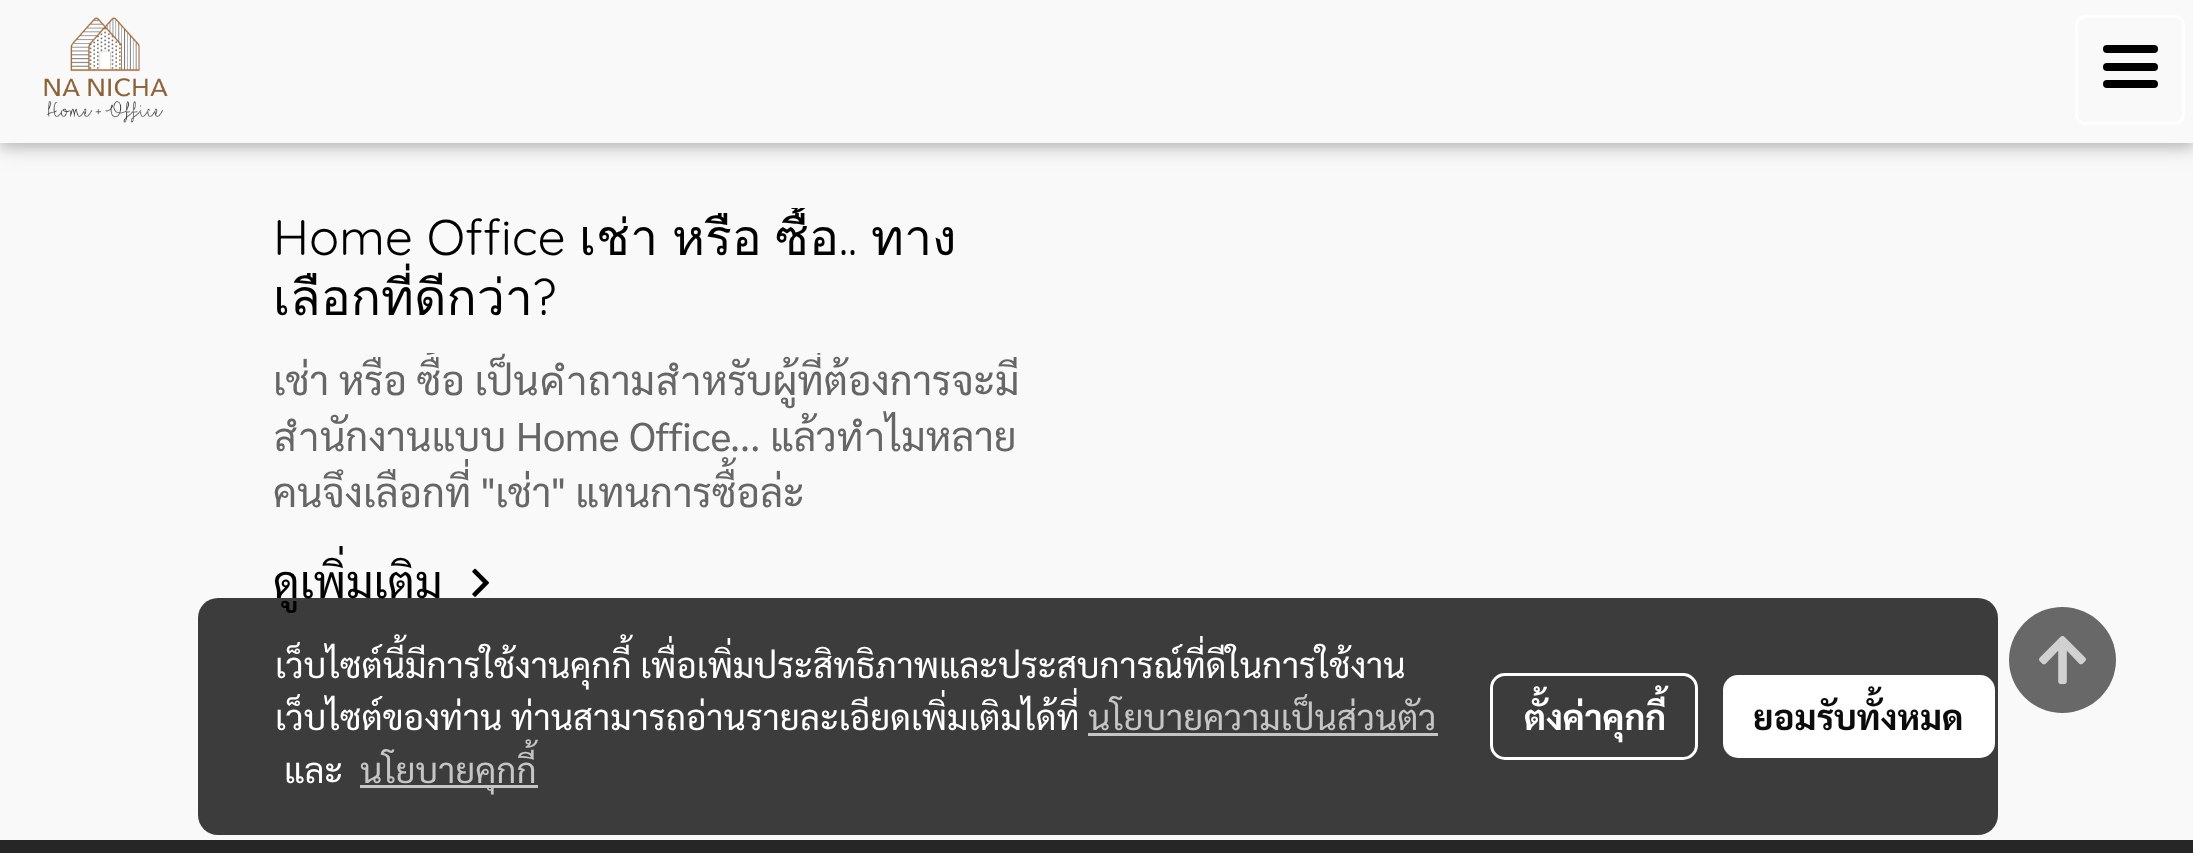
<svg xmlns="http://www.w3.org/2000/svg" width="2193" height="853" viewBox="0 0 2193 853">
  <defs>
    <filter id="blur1" x="-50%" y="-200%" width="200%" height="500%"><feGaussianBlur stdDeviation="12.5"/></filter>
    <filter id="blur2" x="-50%" y="-200%" width="200%" height="500%"><feGaussianBlur stdDeviation="6"/></filter>
    <clipPath id="clip1"><rect x="273" y="208" width="750" height="120"/></clipPath>
    <clipPath id="clip2"><rect x="273" y="353" width="750" height="167"/></clipPath>
    <clipPath id="clip3"><rect x="273" y="545" width="750" height="68"/></clipPath>
  </defs>
  <rect width="100%" height="100%" fill="#f9f9f9"/>
  <rect x="0" y="5" width="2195" height="143" fill="#000000" fill-opacity="0.12" filter="url(#blur1)"/>
  <rect x="0" y="5" width="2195" height="143" fill="#000000" fill-opacity="0.16" filter="url(#blur2)"/>
  <rect x="0" y="0" width="2193" height="143" fill="#f9f9f9"/>
  <image x="44" y="17" width="124" height="106" href="img1.png"/>
  <rect x="2076.5" y="16.5" width="107" height="107" rx="8.5" fill="none" stroke="#ffffff" stroke-width="3"/>
  <rect x="2103" y="63" width="55" height="8" rx="4" fill="#000000"/>
  <rect x="2103" y="45" width="55" height="8" rx="4" fill="#000000"/>
  <rect x="2103" y="80" width="55" height="8" rx="4" fill="#000000"/>
  <text x="273" y="255" font-family="Quicksand" font-size="50" font-weight="300" fill="#000000">Home Office</text>
  <text x="579" y="255" font-family="Loma" font-size="50" fill="#000000">เช่า</text>
  <text x="672" y="255" font-family="Loma" font-size="50" fill="#000000">หรือ</text>
  <g clip-path="url(#clip1)">
    <text x="775" y="255" font-family="Loma" font-size="50" fill="#000000">ซื้อ</text>
  </g>
  <text x="839" y="255" font-family="Quicksand" font-size="50" font-weight="300" fill="#000000">..</text>
  <text x="871" y="255" font-family="Loma" font-size="50" fill="#000000">ทาง</text>
  <g clip-path="url(#clip1)">
    <text x="273" y="315" font-family="Loma" font-size="50" fill="#000000">เลือกที่ดีกว่า</text>
  </g>
  <text x="532" y="315" font-family="Quicksand" font-size="50" font-weight="300" fill="#000000">?</text>
  <g clip-path="url(#clip2)">
    <text x="273" y="395" font-family="Sarabun" font-size="40" fill="#666666">เช่า หรือ ซื้อ เป็นคำถามสำหรับผู้ที่ต้องการจะมี</text>
    <text x="273" y="451" font-family="Sarabun" font-size="40" fill="#666666">สำนักงานแบบ Home Office... แล้วทำไมหลาย</text>
  </g>
  <text x="273" y="507" font-family="Sarabun" font-size="40" fill="#666666">คนจึงเลือกที่ "เช่า" แทนการซื้อล่ะ</text>
  <g clip-path="url(#clip3)">
    <text x="273" y="598" font-family="Sarabun" font-size="45" fill="#000000">ดูเพิ่มเติม</text>
  </g>
  <image x="472" y="568" width="17" height="29" href="img2.png"/>
  <rect x="0" y="840" width="2193" height="13" fill="#262626"/>
  <rect x="198" y="598" width="1800" height="237" rx="20" fill="#000000" fill-opacity="0.76"/>
  <text x="275" y="678" font-family="Sarabun" font-size="35" fill="#ffffff">เว็บไซต์นี้มีการใช้งานคุกกี้ เพื่อเพิ่มประสิทธิภาพและประสบการณ์ที่ดีในการใช้งาน</text>
  <text x="275" y="730" font-family="Sarabun" font-size="35" fill="#ffffff">เว็บไซต์ของท่าน ท่านสามารถอ่านรายละเอียดเพิ่มเติมได้ที่</text>
  <text x="1088" y="730" font-family="Sarabun" font-size="35" fill="#c5c5c5">นโยบายความเป็นส่วนตัว</text>
  <rect x="1088" y="733" width="350" height="3" fill="#c5c5c5"/>
  <text x="284" y="783" font-family="Sarabun" font-size="35" fill="#ffffff">และ</text>
  <rect x="360" y="785" width="178" height="3" fill="#c5c5c5"/>
  <text x="360" y="783" font-family="Sarabun" font-size="35" fill="#c5c5c5">นโยบายคุกกี้</text>
  <rect x="1491.5" y="674.5" width="205" height="84" rx="13.5" fill="none" stroke="#ffffff" stroke-width="3"/>
  <text x="1524" y="730" font-family="Sarabun" font-size="35" font-weight="bold" fill="#ffffff">ตั้งค่าคุกกี้</text>
  <rect x="1723" y="675" width="272" height="83" rx="15" fill="#ffffff"/>
  <text x="1753" y="730" font-family="Sarabun" font-size="35" font-weight="bold" fill="#0c0c0c">ยอมรับทั้งหมด</text>
  <path d="M2062 607C2033 607 2009 631 2009 660C2009 689 2033 713 2062 713C2092 713 2116 689 2116 660C2116 631 2092 607 2062 607Z" fill="#696868"/>
  <image x="2039" y="636" width="47" height="49" href="img3.png"/>
</svg>
